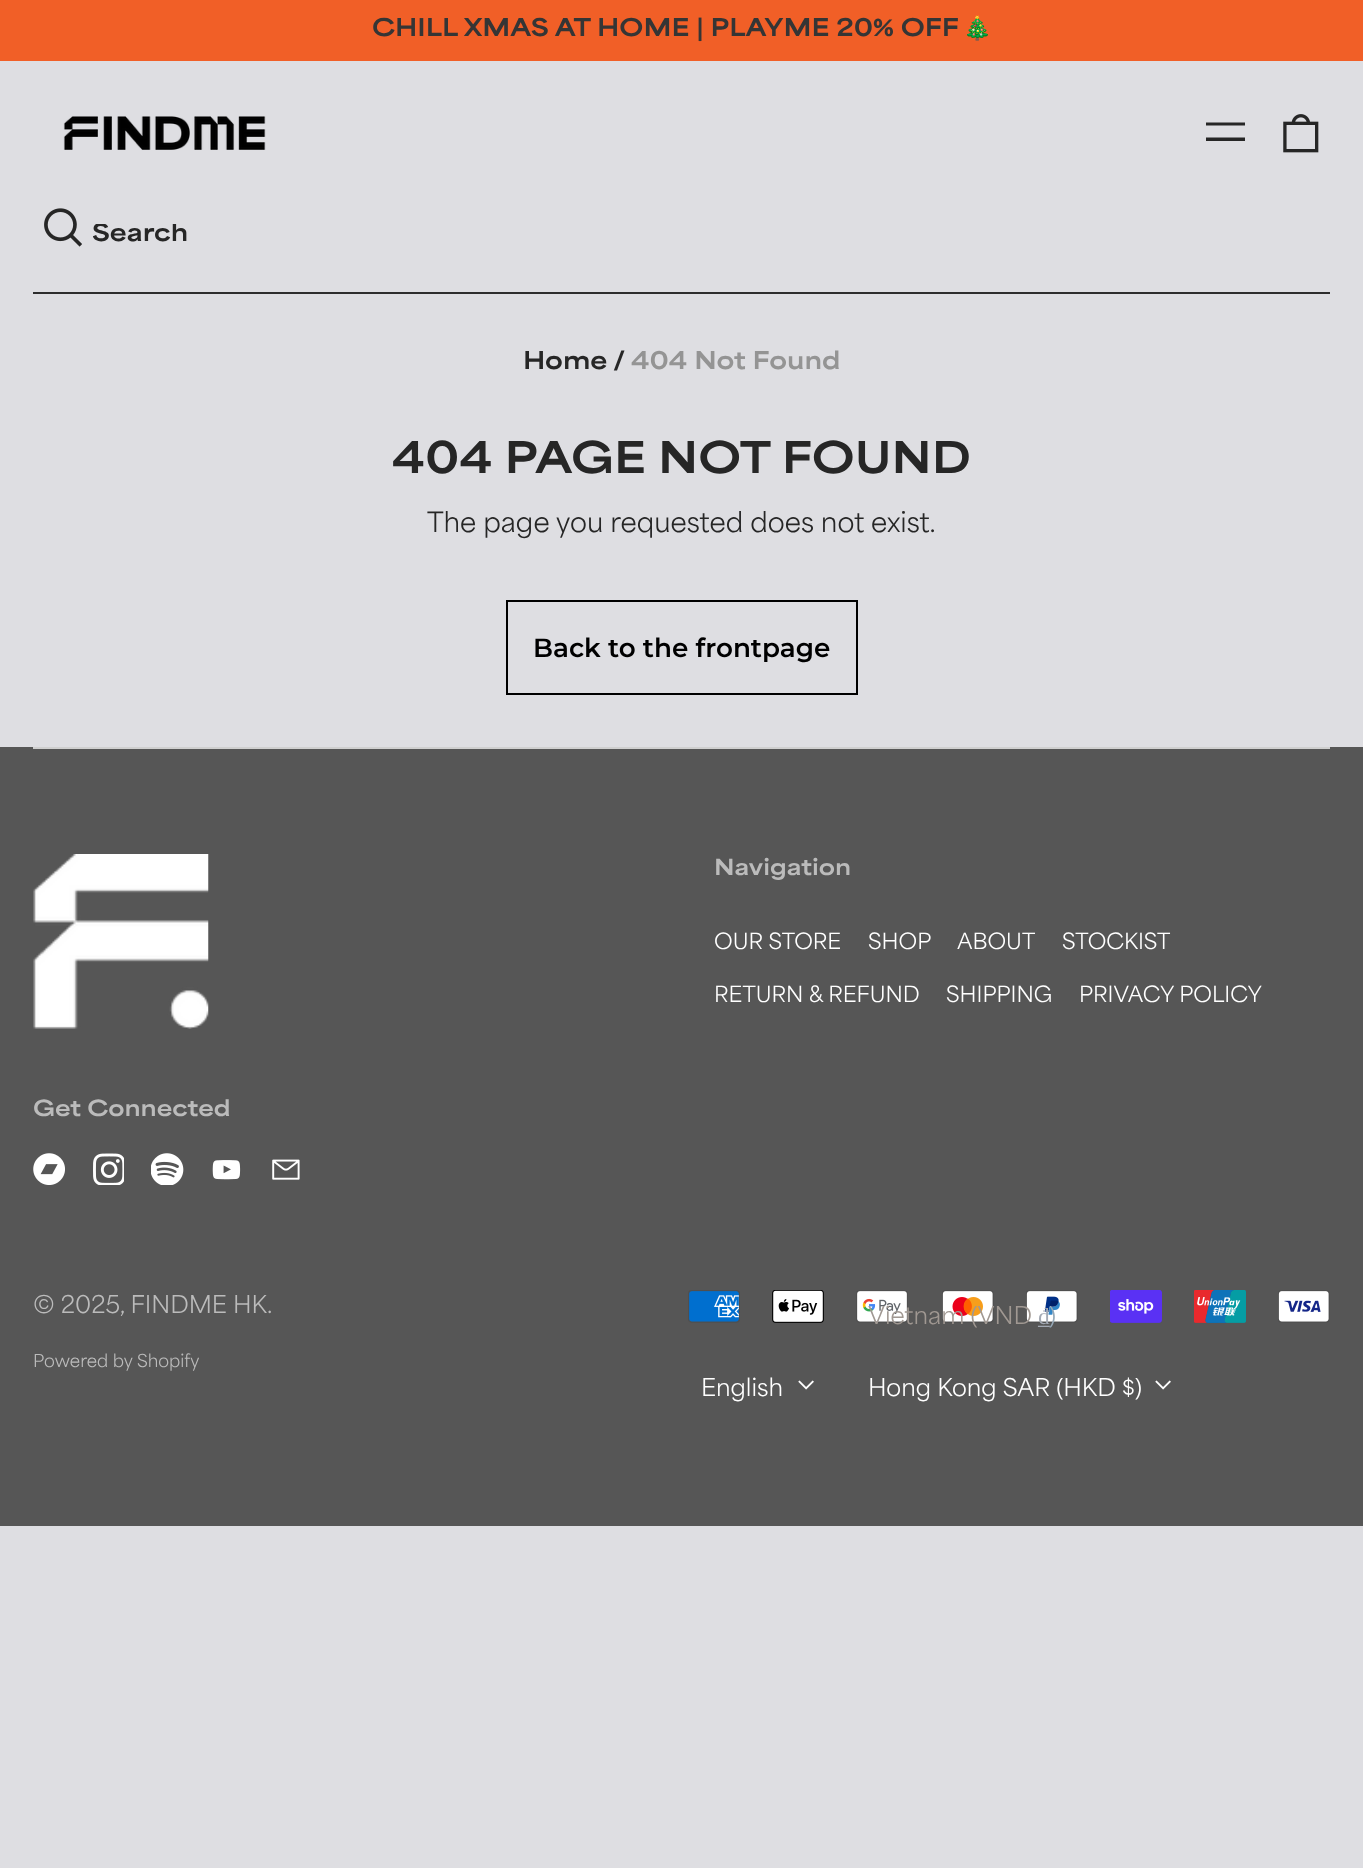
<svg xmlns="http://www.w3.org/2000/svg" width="1363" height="1868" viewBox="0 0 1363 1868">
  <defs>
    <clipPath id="clip1"><rect x="93" y="224" width="1230" height="23"/></clipPath>
  </defs>
  <rect width="100%" height="100%" fill="#dedee2"/>
  <rect x="0" y="0" width="1363" height="61" fill="#f15f27"/>
  <text x="372" y="36" font-family="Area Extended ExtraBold" font-size="23" font-weight="800" fill="#353535">CHILL XMAS AT HOME | PLAYME 20% OFF</text>
  <text x="963" y="36" font-family="Noto Color Emoji" font-size="23" font-weight="bold" fill="#353535">🎄</text>
  <rect x="33" y="292" width="1297" height="2" fill="#2d2d2d"/>
  <image x="63" y="116" width="203" height="34" href="img1.png"/>
  <path d="M1245 137.5V141H1206V137.5ZM1245 122.5V125.5H1206V122.5Z" fill="#262626" fill-rule="evenodd"/>
  <image x="1283" y="114" width="36" height="39" href="img2.png"/>
  <image x="44" y="208" width="38" height="39" href="img3.png"/>
  <g clip-path="url(#clip1)">
    <text x="92" y="241" font-family="Area Extended ExtraBold" font-size="22.75" font-weight="800" fill="#262626">Search</text>
  </g>
  <text x="523" y="369" font-family="Area Extended ExtraBold" font-size="23" font-weight="800" fill="#262626">Home</text>
  <text x="613" y="369" font-family="Area Extended ExtraBold" font-size="23" font-weight="800" fill="#262626">/</text>
  <text x="631" y="369" font-family="Area Extended ExtraBold" font-size="23" font-weight="800" fill="#949494">404 Not Found</text>
  <text x="392" y="473" font-family="Area Extended ExtraBold" font-size="41" font-weight="800" fill="#262626">404 PAGE NOT FOUND</text>
  <text x="427" y="532" font-family="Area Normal" font-size="26.25" fill="#262626">The page you requested does not exist.</text>
  <rect x="507" y="601" width="350" height="93" fill="none" stroke="#000000" stroke-width="2"/>
  <text x="533" y="657" font-family="Montserrat" font-size="26.25" font-weight="600" fill="#000000">Back to the frontpage</text>
  <rect x="0" y="747" width="1363" height="779" fill="#565656"/>
  <rect x="33" y="747" width="1297" height="2" fill="#cfcfcf"/>
  <image x="33" y="854" width="176" height="175" href="img4.png"/>
  <text x="714" y="875" font-family="Area Extended ExtraBold" font-size="21" font-weight="800" fill="#bbbbbb">Navigation</text>
  <text x="714" y="949" font-family="Area Normal" font-size="21" fill="#ffffff">OUR STORE</text>
  <text x="868" y="949" font-family="Area Normal" font-size="21" fill="#ffffff">SHOP</text>
  <text x="957" y="949" font-family="Area Normal" font-size="21" fill="#ffffff">ABOUT</text>
  <text x="1062" y="949" font-family="Area Normal" font-size="21" fill="#ffffff">STOCKIST</text>
  <text x="714" y="1002" font-family="Area Normal" font-size="21" fill="#ffffff">RETURN &amp; REFUND</text>
  <text x="946" y="1002" font-family="Area Normal" font-size="21" fill="#ffffff">SHIPPING</text>
  <text x="1079" y="1002" font-family="Area Normal" font-size="21" fill="#ffffff">PRIVACY POLICY</text>
  <text x="33" y="1116" font-family="Area Extended ExtraBold" font-size="21" font-weight="800" fill="#bbbbbb">Get Connected</text>
  <image x="33" y="1153" width="32" height="32" href="img5.png"/>
  <image x="93" y="1153" width="31" height="32" href="img6.png"/>
  <image x="151" y="1153" width="33" height="32" href="img7.png"/>
  <image x="212" y="1160" width="29" height="20" href="img8.png"/>
  <image x="272" y="1159" width="28" height="21" href="img9.png"/>
  <text x="33" y="1313" font-family="Area Normal" font-size="23" fill="#bbbbbb">© 2025, FINDME HK.</text>
  <text x="33" y="1367" font-family="Area Normal" font-size="16.75" fill="#bbbbbb">Powered by Shopify</text>
  <image x="688" y="1290" width="52" height="33" href="img10.png"/>
  <image x="772" y="1290" width="52" height="33" href="img11.png"/>
  <image x="856" y="1290" width="52" height="33" href="img12.png"/>
  <image x="942" y="1290" width="52" height="33" href="img13.png"/>
  <image x="1026" y="1290" width="52" height="33" href="img14.png"/>
  <image x="1110" y="1290" width="52" height="33" href="img15.png"/>
  <image x="1194" y="1290" width="52" height="33" href="img16.png"/>
  <image x="1278" y="1290" width="52" height="33" href="img17.png"/>
  <text x="701" y="1396" font-family="Area Normal" font-size="23" fill="#ffffff">English</text>
  <image x="798" y="1380" width="16" height="10" href="img18.png"/>
  <text x="868" y="1324" font-family="Area Normal" font-size="23" fill="#a09892">Vietnam (VND</text>
  <text x="1038" y="1324" font-family="Liberation Serif" font-size="23" fill="#a2a8b2">₫</text>
  <text x="1049" y="1324" font-family="Area Normal" font-size="23" fill="#96a9b8">)</text>
  <text x="868" y="1396" font-family="Area Normal" font-size="23" fill="#ffffff">Hong Kong SAR (HKD $)</text>
  <image x="1155" y="1380" width="16" height="10" href="img18.png"/>
</svg>
